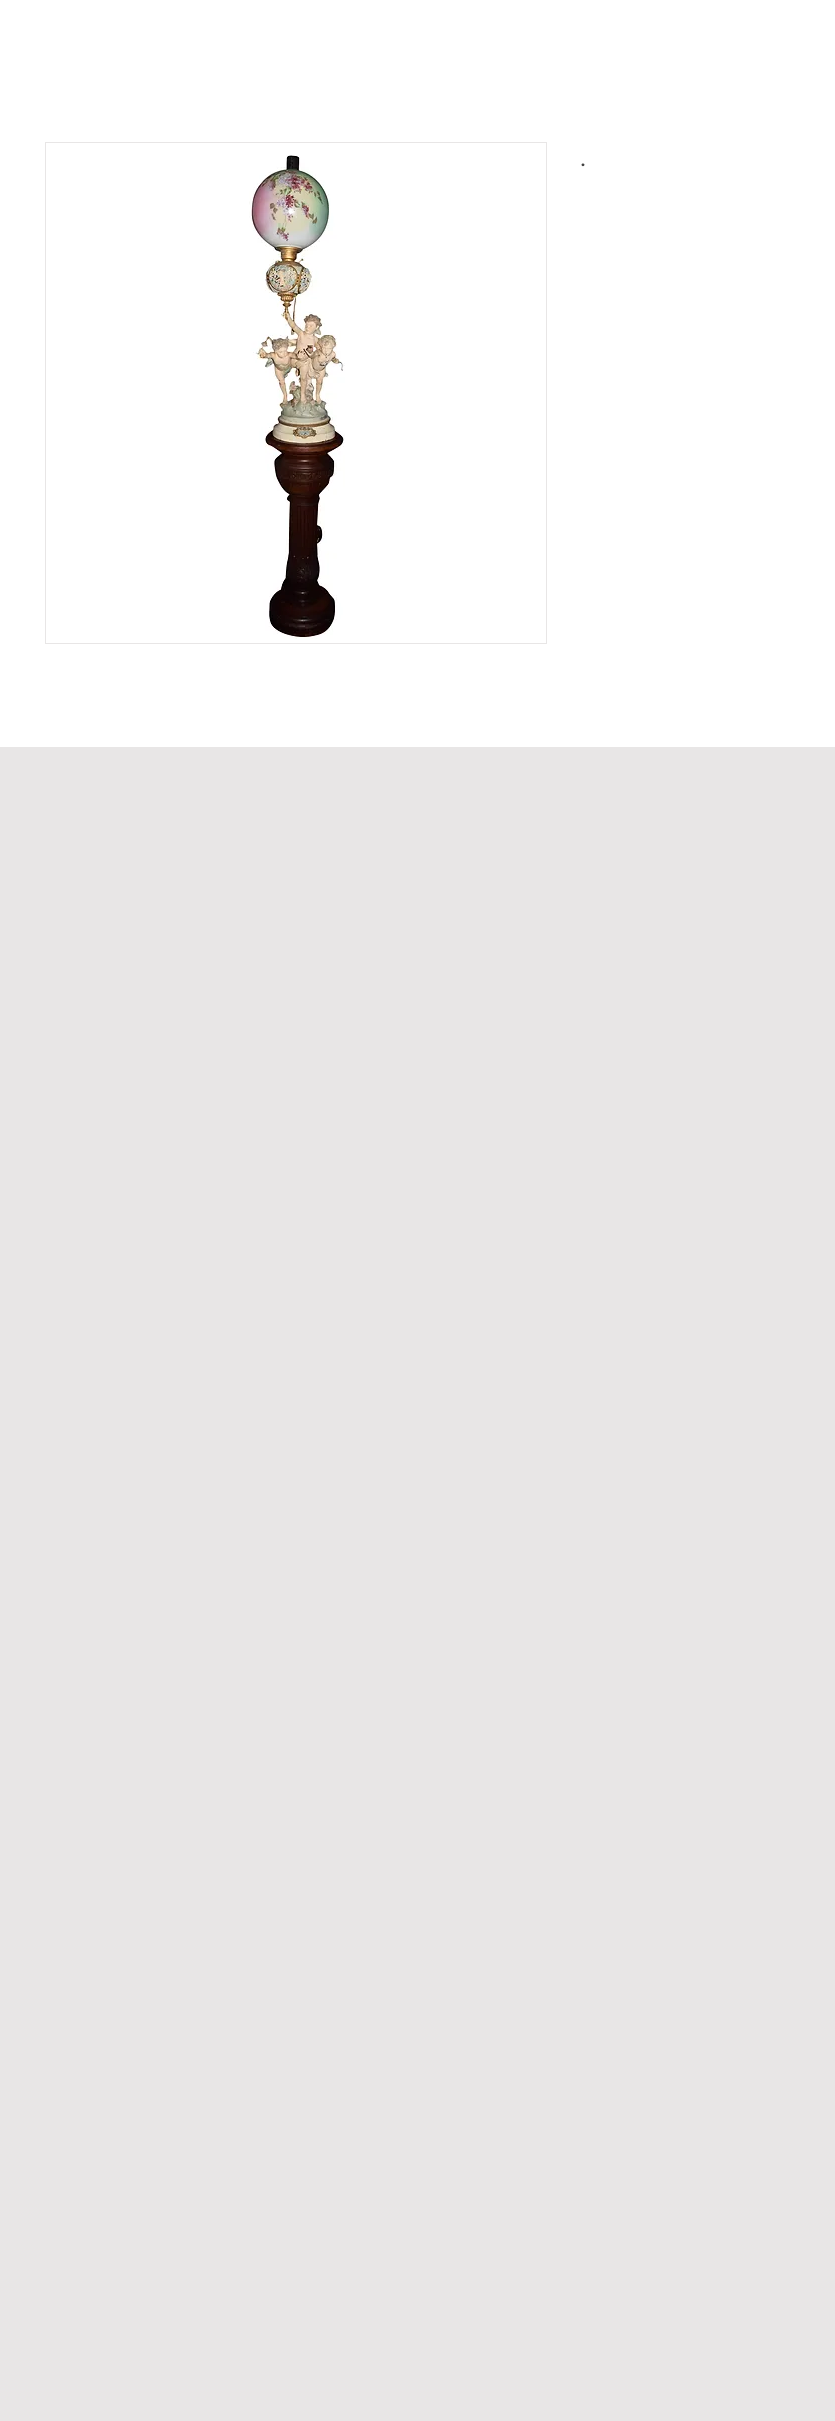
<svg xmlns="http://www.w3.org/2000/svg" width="835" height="2421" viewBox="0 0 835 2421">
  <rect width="100%" height="100%" fill="#e8e6e6"/>
  <rect x="0" y="0" width="835" height="747" fill="#ffffff"/>
  <rect x="45.5" y="142.5" width="501" height="501" fill="none" stroke="#e8e6e6"/>
  <image x="249" y="155" width="96" height="484" href="img1.png"/>
  <text x="580" y="166" font-family="'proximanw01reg'" font-size="26" fill="#414141">.</text>
</svg>
